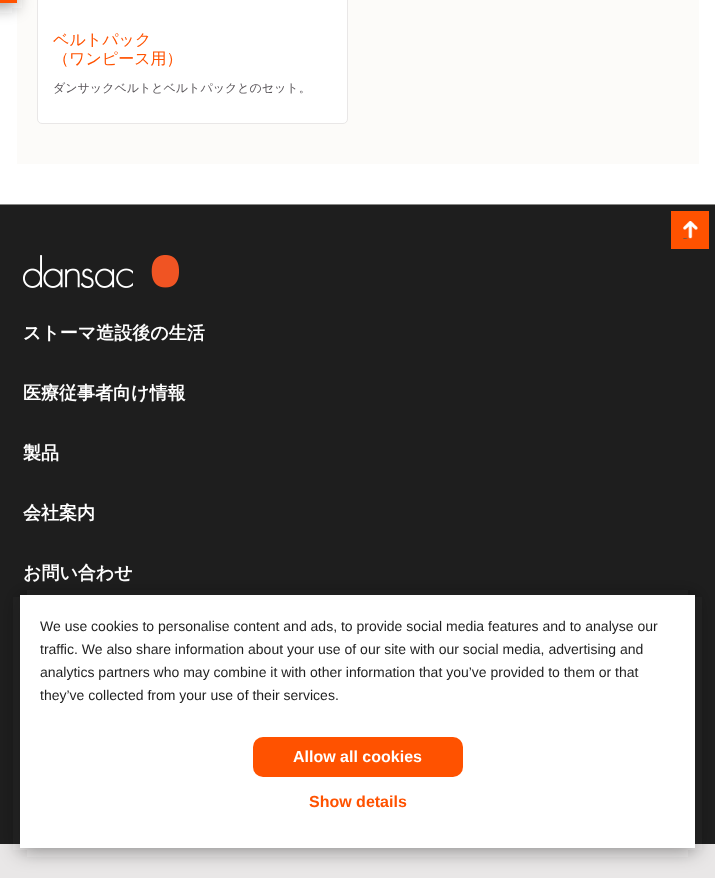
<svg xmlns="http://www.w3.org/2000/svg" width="715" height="878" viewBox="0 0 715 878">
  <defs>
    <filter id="blur1" x="-50%" y="-200%" width="200%" height="500%"><feGaussianBlur stdDeviation="7.5"/></filter>
    <filter id="blur2" x="-50%" y="-200%" width="200%" height="500%"><feGaussianBlur stdDeviation="10"/></filter>
  </defs>
  <rect width="100%" height="100%" fill="#ffffff"/>
  <rect x="17" y="0" width="682" height="164" fill="#fcfbf9"/>
  <rect x="37.5" y="-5.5" width="310" height="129" rx="4.5" fill="#ffffff" stroke="#e9e7e7"/>
  <rect x="-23" y="-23" width="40" height="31" fill="#242424" fill-opacity="0.4" filter="url(#blur1)"/>
  <rect x="0" y="0" width="17" height="3" fill="#ff5200"/>
  <text x="53" y="45" font-family="WenQuanYi Zen Hei" font-size="16" font-weight="500" fill="#ff5200">ベルトパック</text>
  <text x="53" y="64" font-family="WenQuanYi Zen Hei" font-size="16" font-weight="500" fill="#ff5200">（ワンピース用）</text>
  <text x="53" y="92" font-family="WenQuanYi Zen Hei" font-size="12" font-weight="500" fill="#585458">ダンサックベルトとベルトパックとのセット。</text>
  <rect x="0" y="205" width="715" height="639" fill="#1e1e1e"/>
  <rect x="0" y="204" width="715" height="1" fill="#878785"/>
  <rect x="671" y="211" width="38" height="38" fill="#ff5200"/>
  <image x="683" y="221" width="15" height="18" href="img1.png"/>
  <image x="23" y="255" width="156" height="33" href="img2.png"/>
  <text x="23" y="339" font-family="WenQuanYi Zen Hei" font-size="18" font-weight="bold" fill="#ffffff">ストーマ造設後の生活</text>
  <text x="23" y="399" font-family="WenQuanYi Zen Hei" font-size="18" font-weight="bold" fill="#ffffff">医療従事者向け情報</text>
  <text x="23" y="459" font-family="WenQuanYi Zen Hei" font-size="18" font-weight="bold" fill="#ffffff">製品</text>
  <text x="23" y="519" font-family="WenQuanYi Zen Hei" font-size="18" font-weight="bold" fill="#ffffff">会社案内</text>
  <text x="23" y="579" font-family="WenQuanYi Zen Hei" font-size="18" font-weight="bold" fill="#ffffff">お問い合わせ</text>
  <rect x="0" y="844" width="715" height="34" fill="#e9e7e7"/>
  <rect x="20" y="597" width="675" height="253" fill="#212121" fill-opacity="0.5" filter="url(#blur2)"/>
  <rect x="20" y="595" width="675" height="253" fill="#ffffff"/>
  <text x="40" y="631" font-family="Liberation Sans" font-size="14" fill="#1e1e1e">We use cookies to personalise content and ads, to provide social media features and to analyse our</text>
  <text x="40" y="654" font-family="Liberation Sans" font-size="14" fill="#1e1e1e">traffic. We also share information about your use of our site with our social media, advertising and</text>
  <text x="40" y="677" font-family="Liberation Sans" font-size="14" fill="#1e1e1e">analytics partners who may combine it with other information that you’ve provided to them or that</text>
  <text x="40" y="700" font-family="Liberation Sans" font-size="14" fill="#1e1e1e">they’ve collected from your use of their services.</text>
  <rect x="253" y="737" width="210" height="40" rx="10" fill="#ff5200"/>
  <text x="293" y="762" font-family="Liberation Sans" font-size="16" font-weight="bold" fill="#ffffff">Allow all cookies</text>
  <text x="309" y="807" font-family="Liberation Sans" font-size="16" font-weight="bold" fill="#ff5200">Show details</text>
</svg>
